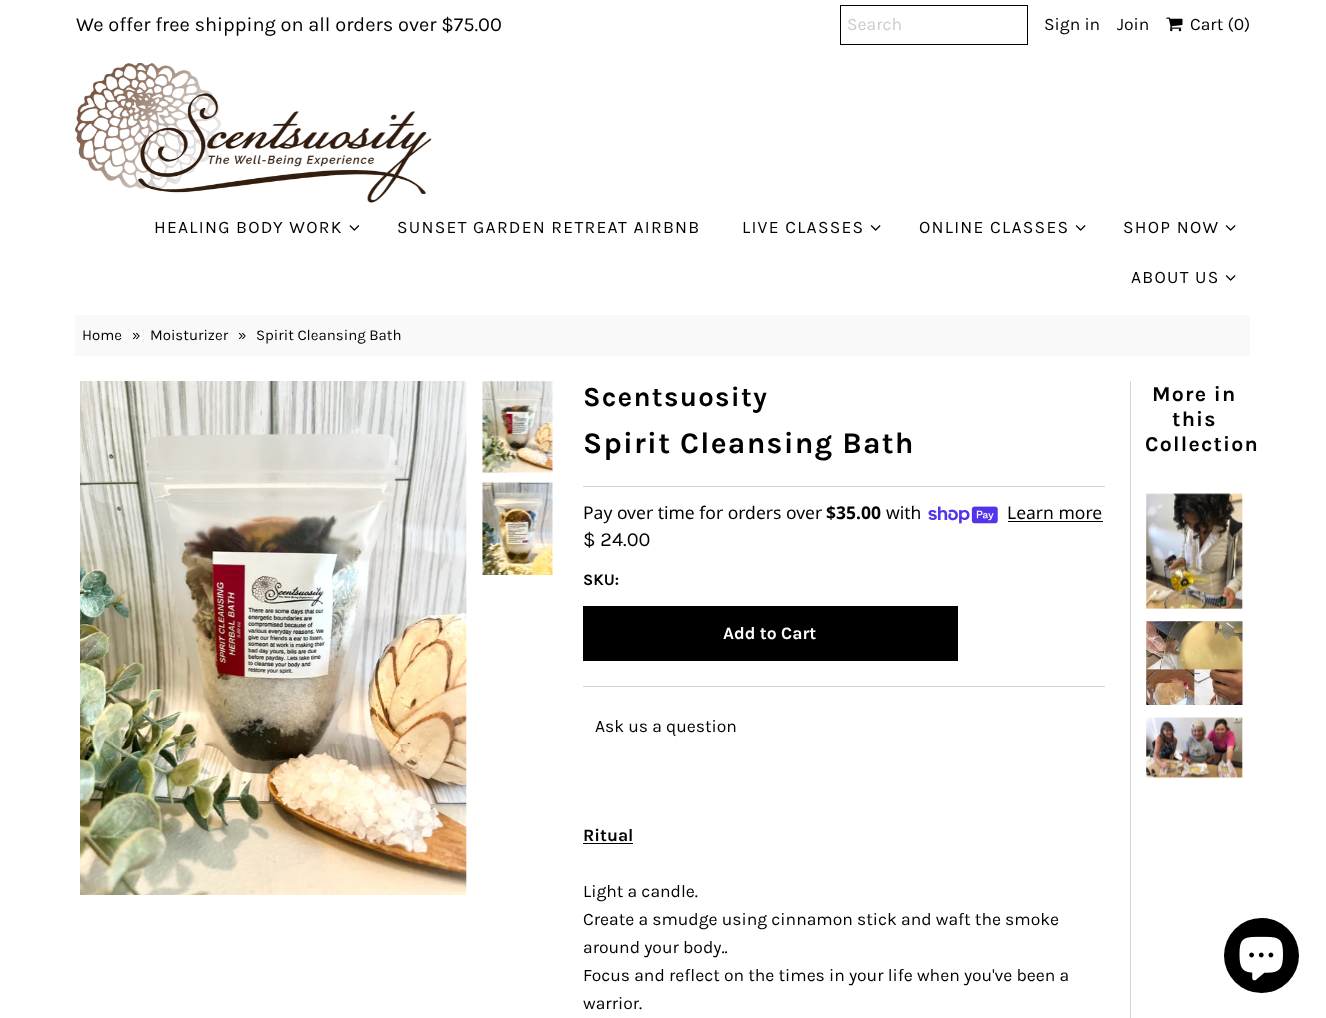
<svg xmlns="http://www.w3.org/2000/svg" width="1326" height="1018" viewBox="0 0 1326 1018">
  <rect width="100%" height="100%" fill="#ffffff"/>
  <text x="76" y="31" font-family="Karla" font-size="20" fill="#000000">We offer free shipping on all orders over $75.00</text>
  <rect x="840.5" y="5.5" width="187" height="39" fill="none" stroke="#000000"/>
  <text x="847" y="30" font-family="Karla" font-size="17.5" fill="#cccccc">Search</text>
  <text x="1044" y="30" font-family="Karla" font-size="17.5" fill="#000000">Sign in</text>
  <text x="1117" y="30" font-family="Karla" font-size="17.5" fill="#000000">Join</text>
  <image x="1166" y="17" width="17" height="15" href="img1.png"/>
  <text x="1190" y="30" font-family="Karla" font-size="17.5" fill="#000000">Cart (0)</text>
  <image x="75" y="63" width="357" height="140" href="img2.png"/>
  <text x="154" y="233" font-family="Karla" font-size="17.5" letter-spacing="1.25" fill="#000000">HEALING BODY WORK</text>
  <image x="349" y="225" width="11" height="6" href="img3.png"/>
  <text x="397" y="233" font-family="Karla" font-size="17.5" letter-spacing="1.25" fill="#000000">SUNSET GARDEN RETREAT AIRBNB</text>
  <text x="742" y="233" font-family="Karla" font-size="17.5" letter-spacing="1.25" fill="#000000">LIVE CLASSES</text>
  <image x="870" y="225" width="11" height="6" href="img4.png"/>
  <text x="919" y="233" font-family="Karla" font-size="17.5" letter-spacing="1.25" fill="#000000">ONLINE CLASSES</text>
  <image x="1075" y="225" width="11" height="6" href="img4.png"/>
  <text x="1123" y="233" font-family="Karla" font-size="17.5" letter-spacing="1.25" fill="#000000">SHOP NOW</text>
  <image x="1225" y="225" width="11" height="6" href="img4.png"/>
  <text x="1131" y="283" font-family="Karla" font-size="17.5" letter-spacing="1.25" fill="#000000">ABOUT US</text>
  <image x="1225" y="275" width="11" height="6" href="img4.png"/>
  <rect x="75" y="315" width="1175" height="41" fill="#f9f9f9"/>
  <text x="82" y="340" font-family="Karla" font-size="15" fill="#000000">Home</text>
  <text x="132" y="340" font-family="Karla" font-size="15" fill="#000000">»</text>
  <text x="150" y="340" font-family="Karla" font-size="15" fill="#000000">Moisturizer</text>
  <text x="238" y="340" font-family="Karla" font-size="15" fill="#000000">»</text>
  <text x="256" y="340" font-family="Karla" font-size="15" fill="#000000">Spirit Cleansing Bath</text>
  <image x="80" y="381" width="387" height="514" href="img5.png"/>
  <image x="482" y="381" width="71" height="92" href="img6.png"/>
  <image x="482" y="482" width="71" height="93" href="img7.png"/>
  <rect x="1130" y="381" width="1" height="637" fill="#d5d5d5"/>
  <text x="583" y="406" font-family="Karla" font-size="27.5" font-weight="bold" letter-spacing="1.25" fill="#000000">Scentsuosity</text>
  <text x="583" y="453" font-family="Karla" font-size="30" font-weight="bold" letter-spacing="1.25" fill="#000000">Spirit Cleansing Bath</text>
  <rect x="583" y="486" width="522" height="1" fill="#d5d5d5"/>
  <rect x="583" y="686" width="522" height="1" fill="#d5d5d5"/>
  <text x="583" y="519" font-family="Noto Sans" font-size="17.5" fill="#000000">Pay over time for orders over</text>
  <text x="826" y="519" font-family="Noto Sans" font-size="17.5" font-weight="bold" fill="#000000">$35.00</text>
  <text x="886" y="519" font-family="Noto Sans" font-size="17.5" fill="#000000">with</text>
  <image x="928" y="506" width="70" height="18" href="img8.png"/>
  <text x="1007" y="519" font-family="Noto Sans" font-size="17.5" fill="#000000">Learn more</text>
  <rect x="1008" y="521" width="95" height="1" fill="#000000"/>
  <text x="583" y="546" font-family="Karla" font-size="20" fill="#000000">$ 24.00</text>
  <text x="583" y="585" font-family="Karla" font-size="16" font-weight="bold" fill="#000000">SKU:</text>
  <rect x="583" y="606" width="375" height="55" fill="#000000"/>
  <text x="723" y="639" font-family="Karla" font-size="17.5" font-weight="bold" fill="#ffffff">Add to Cart</text>
  <text x="595" y="732" font-family="Karla" font-size="17.5" fill="#000000">Ask us a question</text>
  <text x="583" y="841" font-family="Karla" font-size="17.5" font-weight="bold" fill="#000000">Ritual</text>
  <rect x="583" y="843" width="50" height="1" fill="#000000"/>
  <text x="583" y="897" font-family="Karla" font-size="17.5" fill="#000000">Light a candle.</text>
  <text x="583" y="925" font-family="Karla" font-size="17.5" fill="#000000">Create a smudge using cinnamon stick and waft the smoke</text>
  <text x="583" y="953" font-family="Karla" font-size="17.5" fill="#000000">around your body..</text>
  <text x="583" y="981" font-family="Karla" font-size="17.5" fill="#000000">Focus and reflect on the times in your life when you've been a</text>
  <text x="583" y="1009" font-family="Karla" font-size="17.5" fill="#000000">warrior.</text>
  <text x="1152" y="401" font-family="Karla" font-size="21.25" font-weight="bold" letter-spacing="1.25" fill="#000000">More in</text>
  <text x="1172" y="426" font-family="Karla" font-size="21.25" font-weight="bold" letter-spacing="1.25" fill="#000000">this</text>
  <text x="1145" y="451" font-family="Karla" font-size="21.25" font-weight="bold" letter-spacing="1.25" fill="#000000">Collection</text>
  <image x="1146" y="493" width="97" height="116" href="img9.png"/>
  <image x="1146" y="621" width="97" height="84" href="img10.png"/>
  <image x="1146" y="717" width="97" height="61" href="img11.png"/>
  <circle cx="1261.5" cy="955.5" r="37.5" fill="#000000"/>
  <image x="1239" y="936" width="44" height="45" href="img12.png"/>
</svg>
